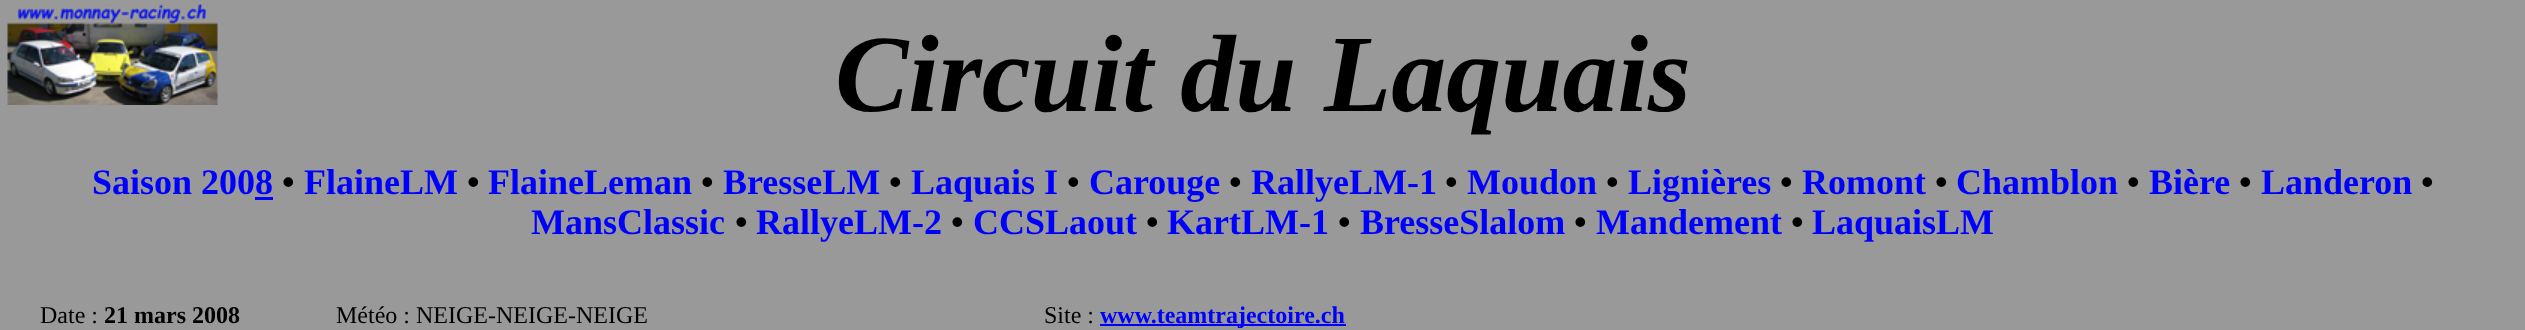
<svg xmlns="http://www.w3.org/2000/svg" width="2525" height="330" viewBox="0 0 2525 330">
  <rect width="100%" height="100%" fill="#999999"/>
  <image x="7" y="4" width="211" height="101" href="img1.png"/>
  <text x="835" y="111" font-family="Liberation Serif" font-size="110" font-weight="bold" font-style="italic" fill="#000000">Circuit du Laquais</text>
  <text x="92" y="194" font-family="Liberation Serif" font-size="36" font-weight="bold" fill="#0000ff">Saison 2008</text>
  <rect x="255" y="197" width="18" height="3" fill="#0000ff"/>
  <text x="282" y="194" font-family="Liberation Serif" font-size="36" font-weight="bold" fill="#000000">•</text>
  <text x="304" y="194" font-family="Liberation Serif" font-size="36" font-weight="bold" fill="#0000ff">FlaineLM</text>
  <text x="467" y="194" font-family="Liberation Serif" font-size="36" font-weight="bold" fill="#000000">•</text>
  <text x="488" y="194" font-family="Liberation Serif" font-size="36" font-weight="bold" fill="#0000ff">FlaineLeman</text>
  <text x="701" y="194" font-family="Liberation Serif" font-size="36" font-weight="bold" fill="#000000">•</text>
  <text x="723" y="194" font-family="Liberation Serif" font-size="36" font-weight="bold" fill="#0000ff">BresseLM</text>
  <text x="889" y="194" font-family="Liberation Serif" font-size="36" font-weight="bold" fill="#000000">•</text>
  <text x="911" y="194" font-family="Liberation Serif" font-size="36" font-weight="bold" fill="#0000ff">Laquais I</text>
  <text x="1067" y="194" font-family="Liberation Serif" font-size="36" font-weight="bold" fill="#000000">•</text>
  <text x="1089" y="194" font-family="Liberation Serif" font-size="36" font-weight="bold" fill="#0000ff">Carouge</text>
  <text x="1229" y="194" font-family="Liberation Serif" font-size="36" font-weight="bold" fill="#000000">•</text>
  <text x="1251" y="194" font-family="Liberation Serif" font-size="36" font-weight="bold" fill="#0000ff">RallyeLM-1</text>
  <text x="1445" y="194" font-family="Liberation Serif" font-size="36" font-weight="bold" fill="#000000">•</text>
  <text x="1467" y="194" font-family="Liberation Serif" font-size="36" font-weight="bold" fill="#0000ff">Moudon</text>
  <text x="1606" y="194" font-family="Liberation Serif" font-size="36" font-weight="bold" fill="#000000">•</text>
  <text x="1628" y="194" font-family="Liberation Serif" font-size="36" font-weight="bold" fill="#0000ff">Lignières</text>
  <text x="1780" y="194" font-family="Liberation Serif" font-size="36" font-weight="bold" fill="#000000">•</text>
  <text x="1802" y="194" font-family="Liberation Serif" font-size="36" font-weight="bold" fill="#0000ff">Romont</text>
  <text x="1935" y="194" font-family="Liberation Serif" font-size="36" font-weight="bold" fill="#000000">•</text>
  <text x="1956" y="194" font-family="Liberation Serif" font-size="36" font-weight="bold" fill="#0000ff">Chamblon</text>
  <text x="2127" y="194" font-family="Liberation Serif" font-size="36" font-weight="bold" fill="#000000">•</text>
  <text x="2149" y="194" font-family="Liberation Serif" font-size="36" font-weight="bold" fill="#0000ff">Bière</text>
  <text x="2239" y="194" font-family="Liberation Serif" font-size="36" font-weight="bold" fill="#000000">•</text>
  <text x="2261" y="194" font-family="Liberation Serif" font-size="36" font-weight="bold" fill="#0000ff">Landeron</text>
  <text x="2421" y="194" font-family="Liberation Serif" font-size="36" font-weight="bold" fill="#000000">•</text>
  <text x="531" y="234" font-family="Liberation Serif" font-size="36" font-weight="bold" fill="#0000ff">MansClassic</text>
  <text x="735" y="234" font-family="Liberation Serif" font-size="36" font-weight="bold" fill="#000000">•</text>
  <text x="756" y="234" font-family="Liberation Serif" font-size="36" font-weight="bold" fill="#0000ff">RallyeLM-2</text>
  <text x="951" y="234" font-family="Liberation Serif" font-size="36" font-weight="bold" fill="#000000">•</text>
  <text x="973" y="234" font-family="Liberation Serif" font-size="36" font-weight="bold" fill="#0000ff">CCSLaout</text>
  <text x="1146" y="234" font-family="Liberation Serif" font-size="36" font-weight="bold" fill="#000000">•</text>
  <text x="1167" y="234" font-family="Liberation Serif" font-size="36" font-weight="bold" fill="#0000ff">KartLM-1</text>
  <text x="1338" y="234" font-family="Liberation Serif" font-size="36" font-weight="bold" fill="#000000">•</text>
  <text x="1360" y="234" font-family="Liberation Serif" font-size="36" font-weight="bold" fill="#0000ff">BresseSlalom</text>
  <text x="1574" y="234" font-family="Liberation Serif" font-size="36" font-weight="bold" fill="#000000">•</text>
  <text x="1596" y="234" font-family="Liberation Serif" font-size="36" font-weight="bold" fill="#0000ff">Mandement</text>
  <text x="1791" y="234" font-family="Liberation Serif" font-size="36" font-weight="bold" fill="#000000">•</text>
  <text x="1812" y="234" font-family="Liberation Serif" font-size="36" font-weight="bold" fill="#0000ff">LaquaisLM</text>
  <text x="40" y="323" font-family="Liberation Serif" font-size="24" fill="#000000">Date :</text>
  <text x="104" y="323" font-family="Liberation Serif" font-size="24" font-weight="bold" fill="#000000">21 mars 2008</text>
  <text x="336" y="323" font-family="Liberation Serif" font-size="24" fill="#000000">Météo : NEIGE-NEIGE-NEIGE</text>
  <text x="1044" y="323" font-family="Liberation Serif" font-size="24" fill="#000000">Site :</text>
  <rect x="1100" y="324" width="246" height="2" fill="#0000ff"/>
  <text x="1100" y="323" font-family="Liberation Serif" font-size="24" font-weight="bold" fill="#0000ff">www.teamtrajectoire.ch</text>
</svg>
